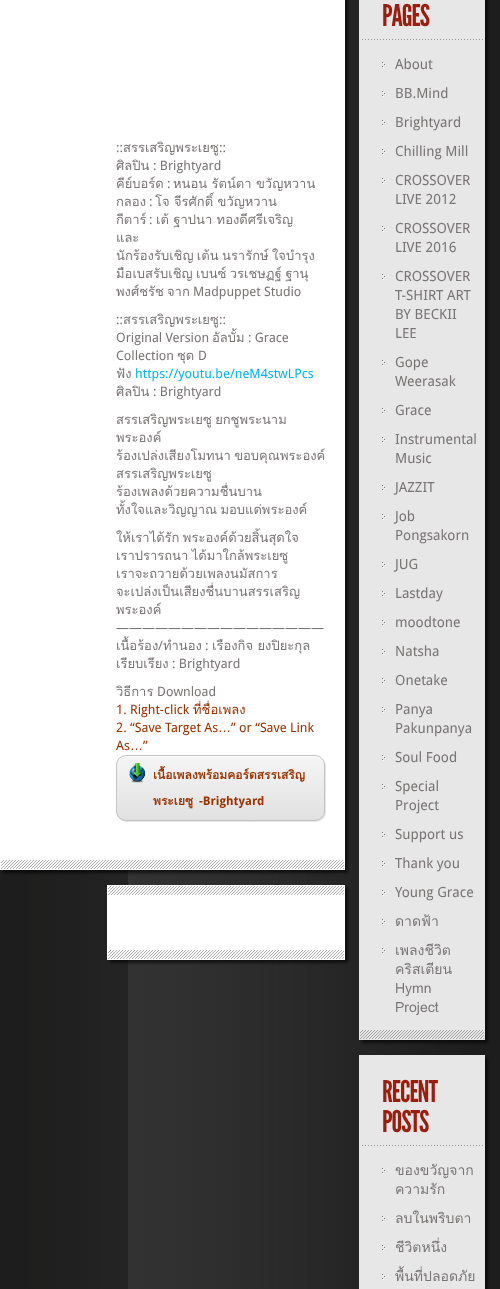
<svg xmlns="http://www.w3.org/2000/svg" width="500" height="1289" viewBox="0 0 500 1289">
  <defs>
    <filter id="blur1" x="-50%" y="-200%" width="200%" height="500%"><feGaussianBlur stdDeviation="1.5"/></filter>
    <filter id="blur2" x="-50%" y="-200%" width="200%" height="500%"><feGaussianBlur stdDeviation="0.5"/></filter>
    <clipPath id="clip1"><rect x="116" y="755" width="209" height="66" rx="10"/></clipPath>
    <linearGradient id="g1" gradientUnits="userSpaceOnUse" x1="221" y1="756" x2="221" y2="820"><stop offset="0" stop-color="#f5f5f5"/><stop offset="1" stop-color="#e1e1e1"/></linearGradient>
  </defs>
  <rect width="100%" height="100%" fill="#ffffff"/>
  <image x="0" y="870" width="128" height="419" href="img1.png"/>
  <image x="128" y="0" width="372" height="1289" href="img2.png"/>
  <rect x="3" y="-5" width="345" height="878" fill="#000000" fill-opacity="0.6" filter="url(#blur1)"/>
  <rect x="0" y="0" width="345" height="870" fill="#ffffff"/>
  <image x="1" y="860" width="343" height="9" href="img3.png"/>
  <text x="116" y="152" font-family="Droid Sans" font-size="13" fill="#7a7575">::</text>
  <text x="123" y="152" font-family="Loma" font-size="13" fill="#7a7575">สรรเสริญพระเยซู</text>
  <text x="219" y="152" font-family="Droid Sans" font-size="13" fill="#7a7575">::</text>
  <text x="116" y="170" font-family="Loma" font-size="13" fill="#7a7575">ศิลปิน</text>
  <text x="153" y="170" font-family="Droid Sans" font-size="13" fill="#7a7575">: Brightyard</text>
  <text x="116" y="188" font-family="Loma" font-size="13" fill="#7a7575">คีย์บอร์ด</text>
  <text x="167" y="188" font-family="Droid Sans" font-size="13" fill="#7a7575">:</text>
  <text x="173" y="188" font-family="Loma" font-size="13" fill="#7a7575">หนอน รัตน์ตา ขวัญหวาน</text>
  <text x="116" y="206" font-family="Loma" font-size="13" fill="#7a7575">กลอง</text>
  <text x="149" y="206" font-family="Droid Sans" font-size="13" fill="#7a7575">:</text>
  <text x="155" y="206" font-family="Loma" font-size="13" fill="#7a7575">โจ จีรศักดิ์ ขวัญหวาน</text>
  <text x="116" y="224" font-family="Loma" font-size="13" fill="#7a7575">กีตาร์</text>
  <text x="149" y="224" font-family="Droid Sans" font-size="13" fill="#7a7575">:</text>
  <text x="156" y="224" font-family="Loma" font-size="13" fill="#7a7575">เต้ ฐาปนา ทองดีศรีเจริญ</text>
  <text x="116" y="242" font-family="Loma" font-size="13" fill="#7a7575">และ</text>
  <text x="116" y="260" word-spacing="-1" font-family="Loma" font-size="13" fill="#7a7575">นักร้องรับเชิญ เต้น นรารักษ์ ใจบำรุง</text>
  <text x="116" y="278" word-spacing="-1" font-family="Loma" font-size="13" fill="#7a7575">มือเบสรับเชิญ เบนซ์ วรเชษฏฐ์ ฐานุ</text>
  <text x="116" y="296" font-family="Loma" font-size="13" fill="#7a7575">พงศ์ชรัช</text>
  <text x="167" y="296" font-family="Loma" font-size="13" fill="#7a7575">จาก</text>
  <text x="193" y="296" font-family="Droid Sans" font-size="13" fill="#7a7575">Madpuppet Studio</text>
  <text x="116" y="324" font-family="Droid Sans" font-size="13" fill="#7a7575">::</text>
  <text x="123" y="324" font-family="Loma" font-size="13" fill="#7a7575">สรรเสริญพระเยซู</text>
  <text x="219" y="324" font-family="Droid Sans" font-size="13" fill="#7a7575">::</text>
  <text x="116" y="342" font-family="Droid Sans" font-size="13" fill="#7a7575">Original Version</text>
  <text x="212" y="342" font-family="Loma" font-size="13" fill="#7a7575">อัลบั้ม</text>
  <text x="248" y="342" font-family="Droid Sans" font-size="13" fill="#7a7575">: Grace</text>
  <text x="116" y="360" font-family="Droid Sans" font-size="13" fill="#7a7575">Collection</text>
  <text x="177" y="360" font-family="Loma" font-size="13" fill="#7a7575">ชุด</text>
  <text x="198" y="360" font-family="Droid Sans" font-size="13" fill="#7a7575">D</text>
  <text x="116" y="378" font-family="Loma" font-size="13" fill="#7a7575">ฟัง</text>
  <text x="135" y="378" font-family="Droid Sans" font-size="13" fill="#00b7f3">https://youtu.be/neM4stwLPcs</text>
  <text x="116" y="396" font-family="Loma" font-size="13" fill="#7a7575">ศิลปิน</text>
  <text x="153" y="396" font-family="Droid Sans" font-size="13" fill="#7a7575">: Brightyard</text>
  <text x="116" y="424" word-spacing="-1" font-family="Loma" font-size="13" fill="#7a7575">สรรเสริญพระเยซู ยกชูพระนาม</text>
  <text x="116" y="442" font-family="Loma" font-size="13" fill="#7a7575">พระองค์</text>
  <text x="116" y="460" word-spacing="-1" font-family="Loma" font-size="13" fill="#7a7575">ร้องเปล่งเสียงโมทนา ขอบคุณพระองค์</text>
  <text x="116" y="478" font-family="Loma" font-size="13" fill="#7a7575">สรรเสริญพระเยซู</text>
  <text x="116" y="496" font-family="Loma" font-size="13" fill="#7a7575">ร้องเพลงด้วยความชื่นบาน</text>
  <text x="116" y="514" word-spacing="-1" font-family="Loma" font-size="13" fill="#7a7575">ทั้งใจและวิญญาณ มอบแด่พระองค์</text>
  <text x="116" y="542" word-spacing="-1" font-family="Loma" font-size="13" fill="#7a7575">ให้เราได้รัก พระองค์ด้วยสิ้นสุดใจ</text>
  <text x="116" y="560" word-spacing="-1" font-family="Loma" font-size="13" fill="#7a7575">เราปรารถนา ได้มาใกล้พระเยซู</text>
  <text x="116" y="578" font-family="Loma" font-size="13" fill="#7a7575">เราจะถวายด้วยเพลงนมัสการ</text>
  <text x="116" y="596" font-family="Loma" font-size="13" fill="#7a7575">จะเปล่งเป็นเสียงชื่นบานสรรเสริญ</text>
  <text x="116" y="614" font-family="Loma" font-size="13" fill="#7a7575">พระองค์</text>
  <text x="116" y="632" font-family="Droid Sans" font-size="13" fill="#7a7575">————————————————</text>
  <text x="116" y="650" font-family="Loma" font-size="13" fill="#7a7575">เนื้อร้อง</text>
  <text x="158" y="650" font-family="Droid Sans" font-size="13" fill="#7a7575">/</text>
  <text x="163" y="650" font-family="Loma" font-size="13" fill="#7a7575">ทำนอง</text>
  <text x="212" y="650" font-family="Loma" font-size="13" fill="#7a7575">เรืองกิจ ยงปิยะกุล</text>
  <text x="205" y="650" font-family="Droid Sans" font-size="13" fill="#7a7575">:</text>
  <text x="116" y="668" font-family="Loma" font-size="13" fill="#7a7575">เรียบเรียง</text>
  <text x="172" y="668" font-family="Droid Sans" font-size="13" fill="#7a7575">: Brightyard</text>
  <text x="116" y="696" font-family="Loma" font-size="13" fill="#7a7575">วิธีการ</text>
  <text x="157" y="696" font-family="Droid Sans" font-size="13" fill="#7a7575">Download</text>
  <text x="116" y="714" font-family="Droid Sans" font-size="13" fill="#993300">1. Right-click</text>
  <text x="193" y="714" font-family="Loma" font-size="13" fill="#993300">ที่ชื่อเพลง</text>
  <text x="116" y="732" font-family="Droid Sans" font-size="13" fill="#993300">2. “Save Target As</text>
  <text x="218" y="732" font-family="Liberation Sans" font-size="13" fill="#993300">…</text>
  <text x="231" y="732" font-family="Droid Sans" font-size="13" fill="#993300">” or “Save Link</text>
  <text x="116" y="750" font-family="Droid Sans" font-size="13" fill="#993300">As</text>
  <text x="143" y="750" font-family="Droid Sans" font-size="13" fill="#993300">”</text>
  <text x="130" y="750" font-family="Liberation Sans" font-size="13" fill="#993300">…</text>
  <rect x="117" y="756" width="209" height="66" rx="10" fill="#000000" fill-opacity="0.1" filter="url(#blur2)"/>
  <g clip-path="url(#clip1)">
    <rect x="116" y="756" width="209" height="64" fill="url(#g1)"/>
  </g>
  <path d="M126 757H315C320 757 324 761 324 766V765C324 760 320 756 315 756H126C121 756 117 760 117 765V766C117 761 121 757 126 757Z" fill="#fefefe"/>
  <rect x="116.5" y="755.5" width="208" height="65" rx="9.5" fill="none" stroke="#c3c3c3"/>
  <image x="129" y="763" width="17" height="20" href="img4.png"/>
  <text x="153" y="779" font-family="Loma" font-size="12" font-weight="bold" fill="#993300">เนื้อเพลงพร้อมคอร์ดสรรเสริญ</text>
  <text x="153" y="805" font-family="Loma" font-size="12" font-weight="bold" fill="#993300">พระเยซู</text>
  <text x="199" y="805" font-family="Droid Sans" font-size="12" font-weight="bold" fill="#993300">-Brightyard</text>
  <rect x="110" y="888" width="238" height="75" fill="#000000" fill-opacity="0.6" filter="url(#blur1)"/>
  <rect x="108" y="886" width="236" height="73" fill="#ffffff"/>
  <image x="108" y="886" width="236" height="9" href="img5.png"/>
  <rect x="107.5" y="885.5" width="237" height="74" fill="none" stroke="#ffffff"/>
  <image x="108" y="950" width="236" height="9" href="img5.png"/>
  <rect x="362" y="-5" width="126" height="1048" fill="#000000" fill-opacity="0.6" filter="url(#blur1)"/>
  <rect x="360" y="0" width="124" height="1039" fill="#e7e7e7"/>
  <image x="360" y="1030" width="124" height="9" href="img6.png"/>
  <rect x="359.5" y="-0.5" width="125" height="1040" fill="none" stroke="#e7e7e7"/>
  <image x="362" y="39" width="121" height="1" href="img7.png"/>
  <text x="382" y="26" font-family="League Gothic" font-size="30" letter-spacing="-1" fill="#9a1d0d">PAGES</text>
  <image x="382" y="62" width="4" height="6" href="img8.png"/>
  <text x="395" y="69" font-family="Droid Sans" font-size="14" fill="#7a7575">About</text>
  <image x="382" y="91" width="4" height="6" href="img8.png"/>
  <text x="395" y="98" font-family="Droid Sans" font-size="14" fill="#7a7575">BB.Mind</text>
  <image x="382" y="120" width="4" height="6" href="img8.png"/>
  <text x="395" y="127" font-family="Droid Sans" font-size="14" fill="#7a7575">Brightyard</text>
  <image x="382" y="149" width="4" height="6" href="img8.png"/>
  <text x="395" y="156" font-family="Droid Sans" font-size="14" fill="#7a7575">Chilling Mill</text>
  <image x="382" y="178" width="4" height="6" href="img8.png"/>
  <text x="395" y="185" font-family="Droid Sans" font-size="14" fill="#7a7575">CROSSOVER</text>
  <text x="395" y="204" font-family="Droid Sans" font-size="14" fill="#7a7575">LIVE 2012</text>
  <image x="382" y="226" width="4" height="6" href="img8.png"/>
  <text x="395" y="233" font-family="Droid Sans" font-size="14" fill="#7a7575">CROSSOVER</text>
  <text x="395" y="252" font-family="Droid Sans" font-size="14" fill="#7a7575">LIVE 2016</text>
  <image x="382" y="274" width="4" height="6" href="img8.png"/>
  <text x="395" y="281" font-family="Droid Sans" font-size="14" fill="#7a7575">CROSSOVER</text>
  <text x="395" y="300" font-family="Droid Sans" font-size="14" fill="#7a7575">T-SHIRT ART</text>
  <text x="395" y="319" font-family="Droid Sans" font-size="14" fill="#7a7575">BY BECKII</text>
  <text x="395" y="338" font-family="Droid Sans" font-size="14" fill="#7a7575">LEE</text>
  <image x="382" y="360" width="4" height="6" href="img8.png"/>
  <text x="395" y="367" font-family="Droid Sans" font-size="14" fill="#7a7575">Gope</text>
  <text x="395" y="386" font-family="Droid Sans" font-size="14" fill="#7a7575">Weerasak</text>
  <image x="382" y="408" width="4" height="6" href="img8.png"/>
  <text x="395" y="415" font-family="Droid Sans" font-size="14" fill="#7a7575">Grace</text>
  <image x="382" y="437" width="4" height="6" href="img8.png"/>
  <text x="395" y="444" font-family="Droid Sans" font-size="14" fill="#7a7575">Instrumental</text>
  <text x="395" y="463" font-family="Droid Sans" font-size="14" fill="#7a7575">Music</text>
  <image x="382" y="485" width="4" height="6" href="img8.png"/>
  <text x="395" y="492" font-family="Droid Sans" font-size="14" fill="#7a7575">JAZZIT</text>
  <image x="382" y="514" width="4" height="6" href="img8.png"/>
  <text x="395" y="521" font-family="Droid Sans" font-size="14" fill="#7a7575">Job</text>
  <text x="395" y="540" font-family="Droid Sans" font-size="14" fill="#7a7575">Pongsakorn</text>
  <image x="382" y="562" width="4" height="6" href="img8.png"/>
  <text x="395" y="569" font-family="Droid Sans" font-size="14" fill="#7a7575">JUG</text>
  <image x="382" y="591" width="4" height="6" href="img8.png"/>
  <text x="395" y="598" font-family="Droid Sans" font-size="14" fill="#7a7575">Lastday</text>
  <image x="382" y="620" width="4" height="6" href="img8.png"/>
  <text x="395" y="627" font-family="Droid Sans" font-size="14" fill="#7a7575">moodtone</text>
  <image x="382" y="649" width="4" height="6" href="img8.png"/>
  <text x="395" y="656" font-family="Droid Sans" font-size="14" fill="#7a7575">Natsha</text>
  <image x="382" y="678" width="4" height="6" href="img8.png"/>
  <text x="395" y="685" font-family="Droid Sans" font-size="14" fill="#7a7575">Onetake</text>
  <image x="382" y="707" width="4" height="6" href="img8.png"/>
  <text x="395" y="714" font-family="Droid Sans" font-size="14" fill="#7a7575">Panya</text>
  <text x="395" y="733" font-family="Droid Sans" font-size="14" fill="#7a7575">Pakunpanya</text>
  <image x="382" y="755" width="4" height="6" href="img8.png"/>
  <text x="395" y="762" font-family="Droid Sans" font-size="14" fill="#7a7575">Soul Food</text>
  <image x="382" y="784" width="4" height="6" href="img8.png"/>
  <text x="395" y="791" font-family="Droid Sans" font-size="14" fill="#7a7575">Special</text>
  <text x="395" y="810" font-family="Droid Sans" font-size="14" fill="#7a7575">Project</text>
  <image x="382" y="832" width="4" height="6" href="img8.png"/>
  <text x="395" y="839" font-family="Droid Sans" font-size="14" fill="#7a7575">Support us</text>
  <image x="382" y="861" width="4" height="6" href="img8.png"/>
  <text x="395" y="868" font-family="Droid Sans" font-size="14" fill="#7a7575">Thank you</text>
  <image x="382" y="890" width="4" height="6" href="img8.png"/>
  <text x="395" y="897" font-family="Droid Sans" font-size="14" fill="#7a7575">Young Grace</text>
  <image x="382" y="919" width="4" height="6" href="img8.png"/>
  <text x="395" y="926" font-family="Loma" font-size="14" fill="#7a7575">ดาดฟ้า</text>
  <image x="382" y="948" width="4" height="6" href="img8.png"/>
  <text x="395" y="955" font-family="Loma" font-size="14" fill="#7a7575">เพลงชีวิต</text>
  <text x="395" y="974" font-family="Loma" font-size="14" fill="#7a7575">คริสเตียน</text>
  <text x="395" y="993" font-family="Loma" font-size="14" fill="#7a7575">Hymn</text>
  <text x="395" y="1012" font-family="Loma" font-size="14" fill="#7a7575">Project</text>
  <rect x="362" y="1058" width="126" height="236" fill="#000000" fill-opacity="0.6" filter="url(#blur1)"/>
  <rect x="359" y="1055" width="126" height="234" fill="#e7e7e7"/>
  <image x="362" y="1145" width="121" height="1" href="img7.png"/>
  <text x="382" y="1102" font-family="League Gothic" font-size="30" letter-spacing="-1" fill="#9a1d0d">RECENT</text>
  <text x="382" y="1132" font-family="League Gothic" font-size="30" letter-spacing="-1" fill="#9a1d0d">POSTS</text>
  <image x="382" y="1168" width="4" height="6" href="img8.png"/>
  <text x="395" y="1175" font-family="Loma" font-size="14" fill="#7a7575">ของขวัญจาก</text>
  <text x="395" y="1194" font-family="Loma" font-size="14" fill="#7a7575">ความรัก</text>
  <image x="382" y="1216" width="4" height="6" href="img8.png"/>
  <text x="395" y="1223" font-family="Loma" font-size="14" fill="#7a7575">ลบในพริบตา</text>
  <image x="382" y="1245" width="4" height="6" href="img8.png"/>
  <text x="395" y="1252" font-family="Loma" font-size="14" fill="#7a7575">ชีวิตหนึ่ง</text>
  <image x="382" y="1274" width="4" height="6" href="img8.png"/>
  <text x="395" y="1281" font-family="Loma" font-size="14" fill="#7a7575">พื้นที่ปลอดภัย</text>
</svg>
